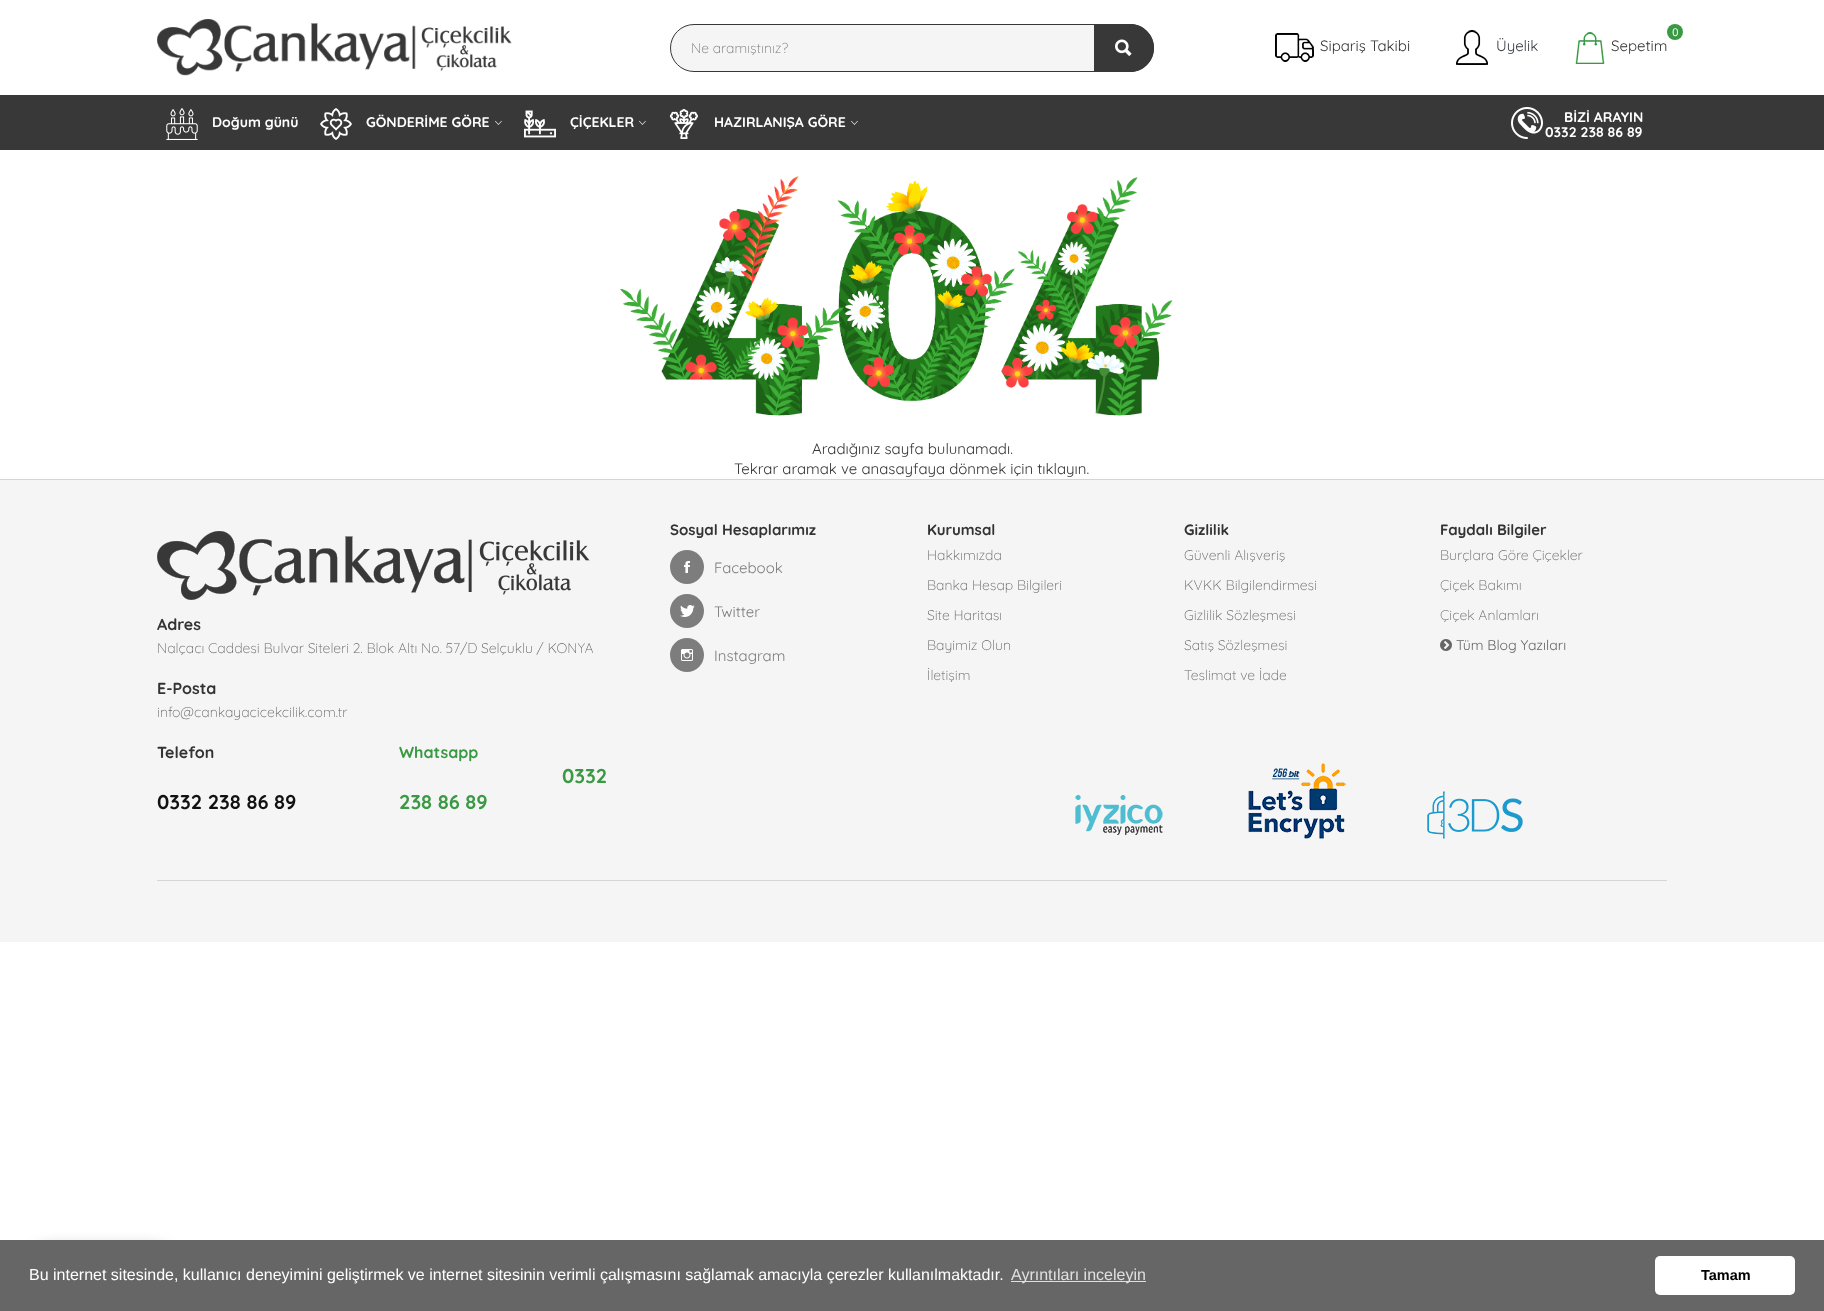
<svg xmlns="http://www.w3.org/2000/svg" width="1824" height="1311" viewBox="0 0 1824 1311">
  <defs>
    <filter id="blur1" x="-50%" y="-200%" width="200%" height="500%"><feGaussianBlur stdDeviation="7.5"/></filter>
  </defs>
  <rect width="100%" height="100%" fill="#ffffff"/>
  <image x="157" y="19" width="355" height="57" href="img1.png"/>
  <rect x="670.5" y="24.5" width="483" height="47" rx="23.5" fill="#f5f5f5" stroke="#383838"/>
  <text x="691" y="53" font-family="Quicksand" font-size="14" font-weight="300" fill="#757575">Ne aramıştınız?</text>
  <path d="M1094 24H1130C1143.5 24 1154 34.5 1154 48C1154 61.5 1143.5 72 1130 72H1094Z" fill="#383838"/>
  <image x="1115" y="39" width="17" height="17" href="img2.png"/>
  <image x="1275" y="33" width="39" height="29" href="img3.png"/>
  <text x="1320" y="51" font-family="Quicksand" font-size="15" fill="#333333">Sipariş Takibi</text>
  <image x="1456" y="30" width="32" height="35" href="img4.png"/>
  <text x="1496" y="51" font-family="Quicksand" font-size="15" fill="#343a40">Üyelik</text>
  <image x="1575" y="32" width="30" height="32" href="img5.png"/>
  <text x="1611" y="51" font-family="Quicksand" font-size="15" fill="#333333">Sepetim</text>
  <circle cx="1675" cy="32" r="8" fill="#3a9943"/>
  <text x="1672" y="36" font-family="IBM Plex Sans" font-size="11" fill="#ffffff">0</text>
  <rect x="0" y="95" width="1824" height="55" fill="#383838"/>
  <image x="166" y="108" width="32" height="32" href="img6.png"/>
  <text x="212" y="127" font-family="Quicksand" font-size="14" font-weight="bold" fill="#ffffff">Doğum günü</text>
  <image x="320" y="108" width="32" height="32" href="img7.png"/>
  <text x="366" y="127" font-family="Quicksand" font-size="14" font-weight="bold" fill="#ffffff">GÖNDERİME GÖRE</text>
  <image x="495" y="120" width="7" height="5" href="img8.png"/>
  <image x="524" y="110" width="32" height="28" href="img9.png"/>
  <text x="570" y="127" font-family="Quicksand" font-size="14" font-weight="bold" fill="#ffffff">ÇİÇEKLER</text>
  <image x="639" y="120" width="7" height="5" href="img8.png"/>
  <image x="669" y="109" width="29" height="30" href="img10.png"/>
  <text x="714" y="127" font-family="Quicksand" font-size="14" font-weight="bold" fill="#ffffff">HAZIRLANIŞA GÖRE</text>
  <image x="851" y="120" width="7" height="5" href="img8.png"/>
  <image x="1511" y="107" width="32" height="32" href="img11.png"/>
  <text x="1564" y="122" font-family="Quicksand" font-size="14" font-weight="bold" fill="#ffffff">BİZİ ARAYIN</text>
  <text x="1545" y="137" font-family="Quicksand" font-size="14" font-weight="bold" fill="#ffffff">0332 238 86 89</text>
  <image x="620" y="176" width="553" height="240" href="img12.png"/>
  <text x="812" y="454" font-family="Quicksand" font-size="15" fill="#333333">Aradığınız sayfa bulunamadı.</text>
  <text x="734" y="474" font-family="Quicksand" font-size="15" fill="#333333">Tekrar aramak ve anasayfaya dönmek için tıklayın.</text>
  <rect x="0" y="480" width="1824" height="462" fill="#f5f5f5"/>
  <rect x="0" y="479" width="1824" height="1" fill="#d5d5d5"/>
  <text x="670" y="535" font-family="Quicksand" font-size="15" font-weight="bold" fill="#333333">Sosyal Hesaplarımız</text>
  <circle cx="687" cy="567" r="17" fill="#7d7d7d"/>
  <image x="684" y="561" width="6" height="12" href="img13.png"/>
  <text x="714" y="573" font-family="Quicksand" font-size="15" fill="#7d7d7d">Facebook</text>
  <circle cx="687" cy="611" r="17" fill="#7d7d7d"/>
  <image x="680" y="605" width="15" height="12" href="img14.png"/>
  <text x="714" y="617" font-family="Quicksand" font-size="15" fill="#7d7d7d">Twitter</text>
  <circle cx="687" cy="655" r="17" fill="#7d7d7d"/>
  <image x="681" y="649" width="12" height="12" href="img15.png"/>
  <text x="714" y="661" font-family="Quicksand" font-size="15" fill="#7d7d7d">Instagram</text>
  <image x="1075" y="795" width="88" height="40" href="img16.png"/>
  <text x="927" y="535" font-family="Quicksand" font-size="15" font-weight="bold" fill="#333333">Kurumsal</text>
  <text x="927" y="560" font-family="Quicksand" font-size="14" font-weight="300" fill="#666666">Hakkımızda</text>
  <text x="927" y="590" font-family="Quicksand" font-size="14" font-weight="300" fill="#666666">Banka Hesap Bilgileri</text>
  <text x="927" y="620" font-family="Quicksand" font-size="14" font-weight="300" fill="#666666">Site Haritası</text>
  <text x="927" y="650" font-family="Quicksand" font-size="14" font-weight="300" fill="#666666">Bayimiz Olun</text>
  <text x="927" y="680" font-family="Quicksand" font-size="14" font-weight="300" fill="#666666">İletişim</text>
  <image x="1248" y="763" width="98" height="76" href="img17.png"/>
  <text x="1184" y="535" font-family="Quicksand" font-size="15" font-weight="bold" fill="#333333">Gizlilik</text>
  <text x="1184" y="560" font-family="Quicksand" font-size="14" font-weight="300" fill="#666666">Güvenli Alışveriş</text>
  <text x="1184" y="590" font-family="Quicksand" font-size="14" font-weight="300" fill="#666666">KVKK Bilgilendirmesi</text>
  <text x="1184" y="620" font-family="Quicksand" font-size="14" font-weight="300" fill="#666666">Gizlilik Sözleşmesi</text>
  <text x="1184" y="650" font-family="Quicksand" font-size="14" font-weight="300" fill="#666666">Satış Sözleşmesi</text>
  <text x="1184" y="680" font-family="Quicksand" font-size="14" font-weight="300" fill="#666666">Teslimat ve İade</text>
  <image x="1427" y="791" width="96" height="48" href="img18.png"/>
  <text x="1440" y="535" font-family="Quicksand" font-size="15" font-weight="bold" fill="#333333">Faydalı Bilgiler</text>
  <text x="1440" y="560" font-family="Quicksand" font-size="14" font-weight="300" fill="#666666">Burçlara Göre Çiçekler</text>
  <text x="1440" y="590" font-family="Quicksand" font-size="14" font-weight="300" fill="#666666">Çiçek Bakımı</text>
  <text x="1440" y="620" font-family="Quicksand" font-size="14" font-weight="300" fill="#666666">Çiçek Anlamları</text>
  <image x="1440" y="639" width="12" height="12" href="img19.png"/>
  <text x="1456" y="650" font-family="Quicksand" font-size="14" fill="#666666">Tüm Blog Yazıları</text>
  <image x="157" y="531" width="433" height="69" href="img20.png"/>
  <text x="157" y="630" font-family="Quicksand" font-size="16" font-weight="bold" fill="#333333">Adres</text>
  <text x="157" y="653" font-family="Quicksand" font-size="14" font-weight="300" fill="#666666">Nalçacı Caddesi Bulvar Siteleri 2. Blok Altı No. 57/D Selçuklu / KONYA</text>
  <text x="157" y="694" font-family="Quicksand" font-size="16" font-weight="bold" fill="#333333">E-Posta</text>
  <text x="157" y="717" font-family="Quicksand" font-size="14" font-weight="300" fill="#666666">info@cankayacicekcilik.com.tr</text>
  <text x="157" y="758" font-family="Quicksand" font-size="16" font-weight="bold" fill="#333333">Telefon</text>
  <text x="157" y="809" font-family="Quicksand" font-size="20" font-weight="bold" fill="#111111">0332 238 86 89</text>
  <text x="399" y="758" font-family="Quicksand" font-size="16" font-weight="bold" fill="#3a9943">Whatsapp</text>
  <text x="562" y="783" font-family="Quicksand" font-size="20" font-weight="bold" fill="#3a9943">0332</text>
  <text x="399" y="809" font-family="Quicksand" font-size="20" font-weight="bold" fill="#3a9943">238 86 89</text>
  <rect x="157" y="880" width="1510" height="1" fill="#d5d5d5"/>
  <rect x="30" y="1247" width="142" height="40" rx="20" fill="#202124" fill-opacity="0.28" filter="url(#blur1)"/>
  <rect x="0" y="1240" width="1824" height="71" fill="#666666"/>
  <text x="29" y="1280" font-family="Liberation Sans" font-size="16" fill="#ffffff">Bu internet sitesinde, kullanıcı deneyimini geliştirmek ve internet sitesinin verimli çalışmasını sağlamak amacıyla çerezler kullanılmaktadır.</text>
  <rect x="1011" y="1281" width="135" height="1" fill="#e0e0e0"/>
  <text x="1011" y="1280" font-family="Liberation Sans" font-size="16" fill="#e0e0e0">Ayrıntıları inceleyin</text>
  <rect x="1655" y="1256" width="140" height="39" rx="5" fill="#ffffff"/>
  <text x="1701" y="1280" font-family="Liberation Sans" font-size="14.5" font-weight="bold" fill="#000000">Tamam</text>
</svg>
